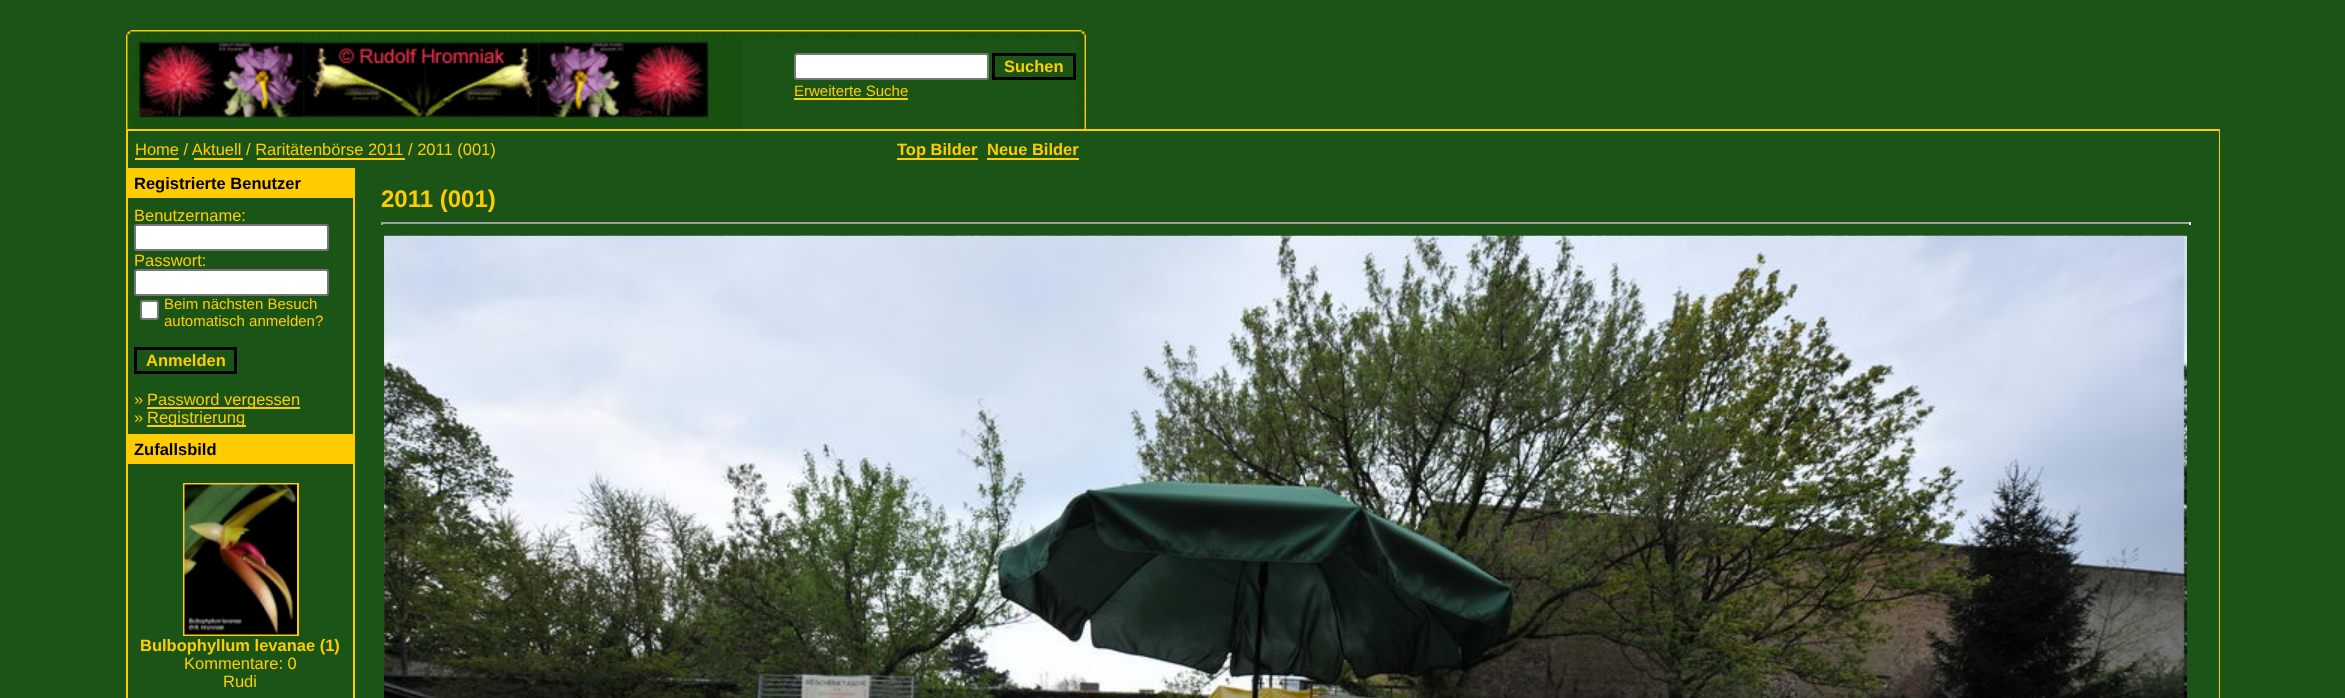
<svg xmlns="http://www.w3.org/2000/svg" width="2345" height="698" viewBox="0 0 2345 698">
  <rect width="100%" height="100%" fill="#1b5417"/>
  <image x="126" y="30" width="960" height="9" href="img1.png"/>
  <image x="126" y="39" width="9" height="90" href="img2.png"/>
  <image x="135" y="39" width="607" height="90" href="img3.png"/>
  <rect x="795" y="54" width="193" height="25" rx="2" fill="#ffffff" stroke="#767676" stroke-width="2"/>
  <rect x="993.5" y="54.5" width="81" height="24" fill="none" stroke="#000000" stroke-width="3"/>
  <text x="1004" y="72" font-family="Liberation Sans" font-size="16.5" font-weight="bold" fill="#ffcc00">Suchen</text>
  <text x="794" y="96" font-family="Liberation Sans" font-size="15" fill="#ffcc00">Erweiterte Suche</text>
  <rect x="794" y="98" width="114" height="2" fill="#ffcc00"/>
  <image x="1077" y="39" width="9" height="90" href="img4.png"/>
  <rect x="126" y="129" width="2094" height="569" fill="#ffcc00"/>
  <rect x="128" y="131" width="2091" height="567" fill="#1b5417"/>
  <rect x="135" y="158" width="44" height="2" fill="#ffcc00"/>
  <text x="135" y="155" font-family="Liberation Sans" font-size="16.5" fill="#ffcc00">Home / Aktuell / Raritätenbörse 2011 / 2011 (001)</text>
  <rect x="194" y="158" width="49" height="2" fill="#ffcc00"/>
  <rect x="257" y="158" width="148" height="2" fill="#ffcc00"/>
  <rect x="897" y="158" width="81" height="2" fill="#ffcc00"/>
  <text x="897" y="155" font-family="Liberation Sans" font-size="16.5" font-weight="bold" fill="#ffcc00">Top Bilder</text>
  <text x="987" y="155" font-family="Liberation Sans" font-size="16.5" font-weight="bold" fill="#ffcc00">Neue Bilder</text>
  <rect x="987" y="158" width="92" height="2" fill="#ffcc00"/>
  <rect x="128" y="168" width="225" height="30" fill="#ffcc00"/>
  <text x="134" y="189" font-family="Liberation Sans" font-size="16.5" font-weight="bold" fill="#000000">Registrierte Benutzer</text>
  <text x="134" y="221" font-family="Liberation Sans" font-size="16.5" fill="#ffcc00">Benutzername:</text>
  <rect x="135" y="225" width="193" height="25" rx="2" fill="#ffffff" stroke="#767676" stroke-width="2"/>
  <text x="134" y="266" font-family="Liberation Sans" font-size="16.5" fill="#ffcc00">Passwort:</text>
  <rect x="135" y="270" width="193" height="25" rx="2" fill="#ffffff" stroke="#767676" stroke-width="2"/>
  <rect x="141" y="301" width="17" height="18" rx="2" fill="#ffffff" stroke="#767676" stroke-width="2"/>
  <text x="164" y="309" font-family="Liberation Sans" font-size="15" fill="#ffcc00">Beim nächsten Besuch</text>
  <text x="164" y="326" font-family="Liberation Sans" font-size="15" fill="#ffcc00">automatisch anmelden?</text>
  <rect x="135.5" y="348.5" width="100" height="24" fill="none" stroke="#000000" stroke-width="3"/>
  <text x="146" y="366" font-family="Liberation Sans" font-size="16.5" font-weight="bold" fill="#ffcc00">Anmelden</text>
  <text x="134" y="405" font-family="Liberation Sans" font-size="16.5" fill="#ffcc00">»</text>
  <rect x="147" y="407" width="153" height="2" fill="#ffcc00"/>
  <text x="147" y="405" font-family="Liberation Sans" font-size="16.5" fill="#ffcc00">Password vergessen</text>
  <text x="134" y="423" font-family="Liberation Sans" font-size="16.5" fill="#ffcc00">»</text>
  <rect x="147" y="425" width="99" height="2" fill="#ffcc00"/>
  <text x="147" y="423" font-family="Liberation Sans" font-size="16.5" fill="#ffcc00">Registrierung</text>
  <rect x="128" y="434" width="225" height="30" fill="#ffcc00"/>
  <text x="134" y="455" font-family="Liberation Sans" font-size="16.5" font-weight="bold" fill="#000000">Zufallsbild</text>
  <rect x="184" y="484" width="114" height="151" fill="none" stroke="#ffcc00" stroke-width="2"/>
  <image x="184" y="484" width="113" height="151" href="img5.png"/>
  <text x="140" y="651" font-family="Liberation Sans" font-size="16.5" font-weight="bold" fill="#ffcc00">Bulbophyllum levanae (1)</text>
  <text x="184" y="669" font-family="Liberation Sans" font-size="16.5" fill="#ffcc00">Kommentare: 0</text>
  <text x="223" y="687" font-family="Liberation Sans" font-size="16.5" fill="#ffcc00">Rudi</text>
  <rect x="353" y="168" width="2" height="530" fill="#ffcc00"/>
  <text x="381" y="207" font-family="Liberation Sans" font-size="24" font-weight="bold" fill="#ffcc00">2011 (001)</text>
  <rect x="381" y="222" width="1809" height="2" fill="#9f9f9f"/>
  <rect x="2189" y="222" width="2" height="3" fill="#eeeeee"/>
  <rect x="381" y="222" width="2" height="3" fill="#9f9f9f"/>
  <image x="384" y="235" width="1803" height="463" href="img6.png"/>
</svg>
